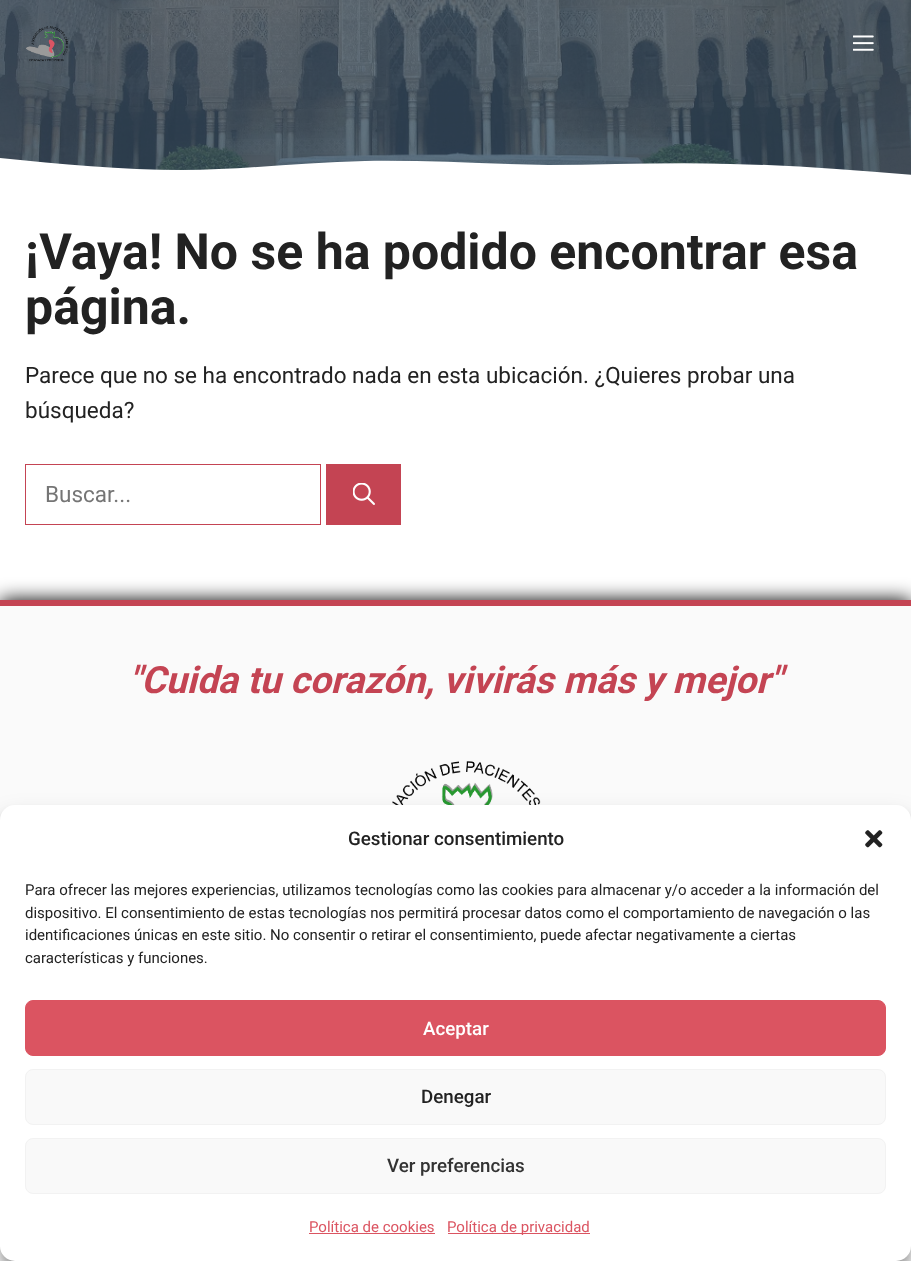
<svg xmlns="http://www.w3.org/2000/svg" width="911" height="1261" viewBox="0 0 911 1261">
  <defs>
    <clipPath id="clip1"><rect x="0" y="158" width="911" height="17"/></clipPath>
    <filter id="blur1" x="-50%" y="-200%" width="200%" height="500%"><feGaussianBlur stdDeviation="9.5"/></filter>
    <filter id="blur2" x="-50%" y="-200%" width="200%" height="500%"><feGaussianBlur stdDeviation="4"/></filter>
    <filter id="blur3" x="-50%" y="-200%" width="200%" height="500%"><feGaussianBlur stdDeviation="12.5"/></filter>
  </defs>
  <rect width="100%" height="100%" fill="#ffffff"/>
  <rect x="0" y="0" width="911" height="175" fill="#3c5467"/>
  <image x="0" y="0" width="911" height="175" href="img1.png"/>
  <g clip-path="url(#clip1)">
    <path d="M0 158C61 164 121 170 182 170C243 170 304 162 365 161C426 160 487 164 548 165C608 165 669 162 730 164C791 165 852 170 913 175V176H0Z" fill="#ffffff"/>
  </g>
  <image x="26" y="26" width="42" height="36" href="img2.png"/>
  <image x="853" y="35" width="21" height="16" href="img3.png"/>
  <text x="25" y="269" font-family="Roboto" font-size="50" font-weight="bold" fill="#222222">¡Vaya! No se ha podido encontrar esa</text>
  <text x="25" y="324" font-family="Roboto" font-size="50" font-weight="bold" fill="#222222">página.</text>
  <text x="25" y="383" font-family="Roboto" font-size="22.5" fill="#222222">Parece que no se ha encontrado nada en esta ubicación. ¿Quieres probar una</text>
  <text x="25" y="418" font-family="Roboto" font-size="22.5" fill="#222222">búsqueda?</text>
  <rect x="25.5" y="464.5" width="295" height="60" fill="none" stroke="#c44453"/>
  <text x="45" y="502" font-family="Roboto" font-size="22.5" fill="#757575">Buscar...</text>
  <rect x="326" y="464" width="75" height="61" fill="#c44453"/>
  <image x="353" y="483" width="22" height="22" href="img4.png"/>
  <rect x="0" y="600" width="911" height="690" fill="#000000" filter="url(#blur1)"/>
  <rect x="0" y="606" width="911" height="655" fill="#fafafa"/>
  <rect x="0" y="600" width="911" height="6" fill="#c44453"/>
  <text x="129" y="693" font-family="Roboto" font-size="37.5" font-weight="bold" font-style="italic" fill="#c44453">"Cuida tu corazón, vivirás más y mejor"</text>
  <image x="392" y="761" width="149" height="44" href="img5.png"/>
  <rect x="0" y="813" width="911" height="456" rx="15" fill="#000000" fill-opacity="0.23" filter="url(#blur2)"/>
  <rect x="0" y="818" width="911" height="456" rx="15" fill="#000000" fill-opacity="0.19" filter="url(#blur3)"/>
  <rect x="0" y="805" width="911" height="456" rx="15" fill="#ffffff"/>
  <text x="348" y="845" font-family="Roboto" font-size="18.75" font-weight="500" fill="#222222">Gestionar consentimiento</text>
  <image x="865" y="830" width="18" height="18" href="img6.png"/>
  <text x="25" y="895" font-family="Roboto" font-size="15" fill="#222222">Para ofrecer las mejores experiencias, utilizamos tecnologías como las cookies para almacenar y/o acceder a la información del</text>
  <text x="25" y="918" font-family="Roboto" font-size="15" fill="#222222">dispositivo. El consentimiento de estas tecnologías nos permitirá procesar datos como el comportamiento de navegación o las</text>
  <text x="25" y="940" font-family="Roboto" font-size="15" fill="#222222">identificaciones únicas en este sitio. No consentir o retirar el consentimiento, puede afectar negativamente a ciertas</text>
  <text x="25" y="963" font-family="Roboto" font-size="15" fill="#222222">características y funciones.</text>
  <rect x="25.5" y="1000.5" width="860" height="55" rx="7.5" fill="#db5461" stroke="#db5461"/>
  <text x="423" y="1035" font-family="Roboto" font-size="18.75" font-weight="500" fill="#ffffff">Aceptar</text>
  <rect x="25.5" y="1069.5" width="860" height="55" rx="7.5" fill="#f9f9f9" stroke="#f2f2f2"/>
  <text x="421" y="1103" font-family="Roboto" font-size="18.75" font-weight="500" fill="#222222">Denegar</text>
  <rect x="25.5" y="1138.5" width="860" height="55" rx="7.5" fill="#f9f9f9" stroke="#f2f2f2"/>
  <text x="387" y="1172" font-family="Roboto" font-size="18.75" font-weight="500" fill="#333333">Ver preferencias</text>
  <text x="309" y="1232" font-family="Roboto" font-size="15" fill="#db5461">Política de cookies</text>
  <rect x="309" y="1233" width="126" height="1" fill="#db5461"/>
  <rect x="448" y="1233" width="142" height="1" fill="#db5461"/>
  <text x="447" y="1232" font-family="Roboto" font-size="15" fill="#db5461">Política de privacidad</text>
</svg>
